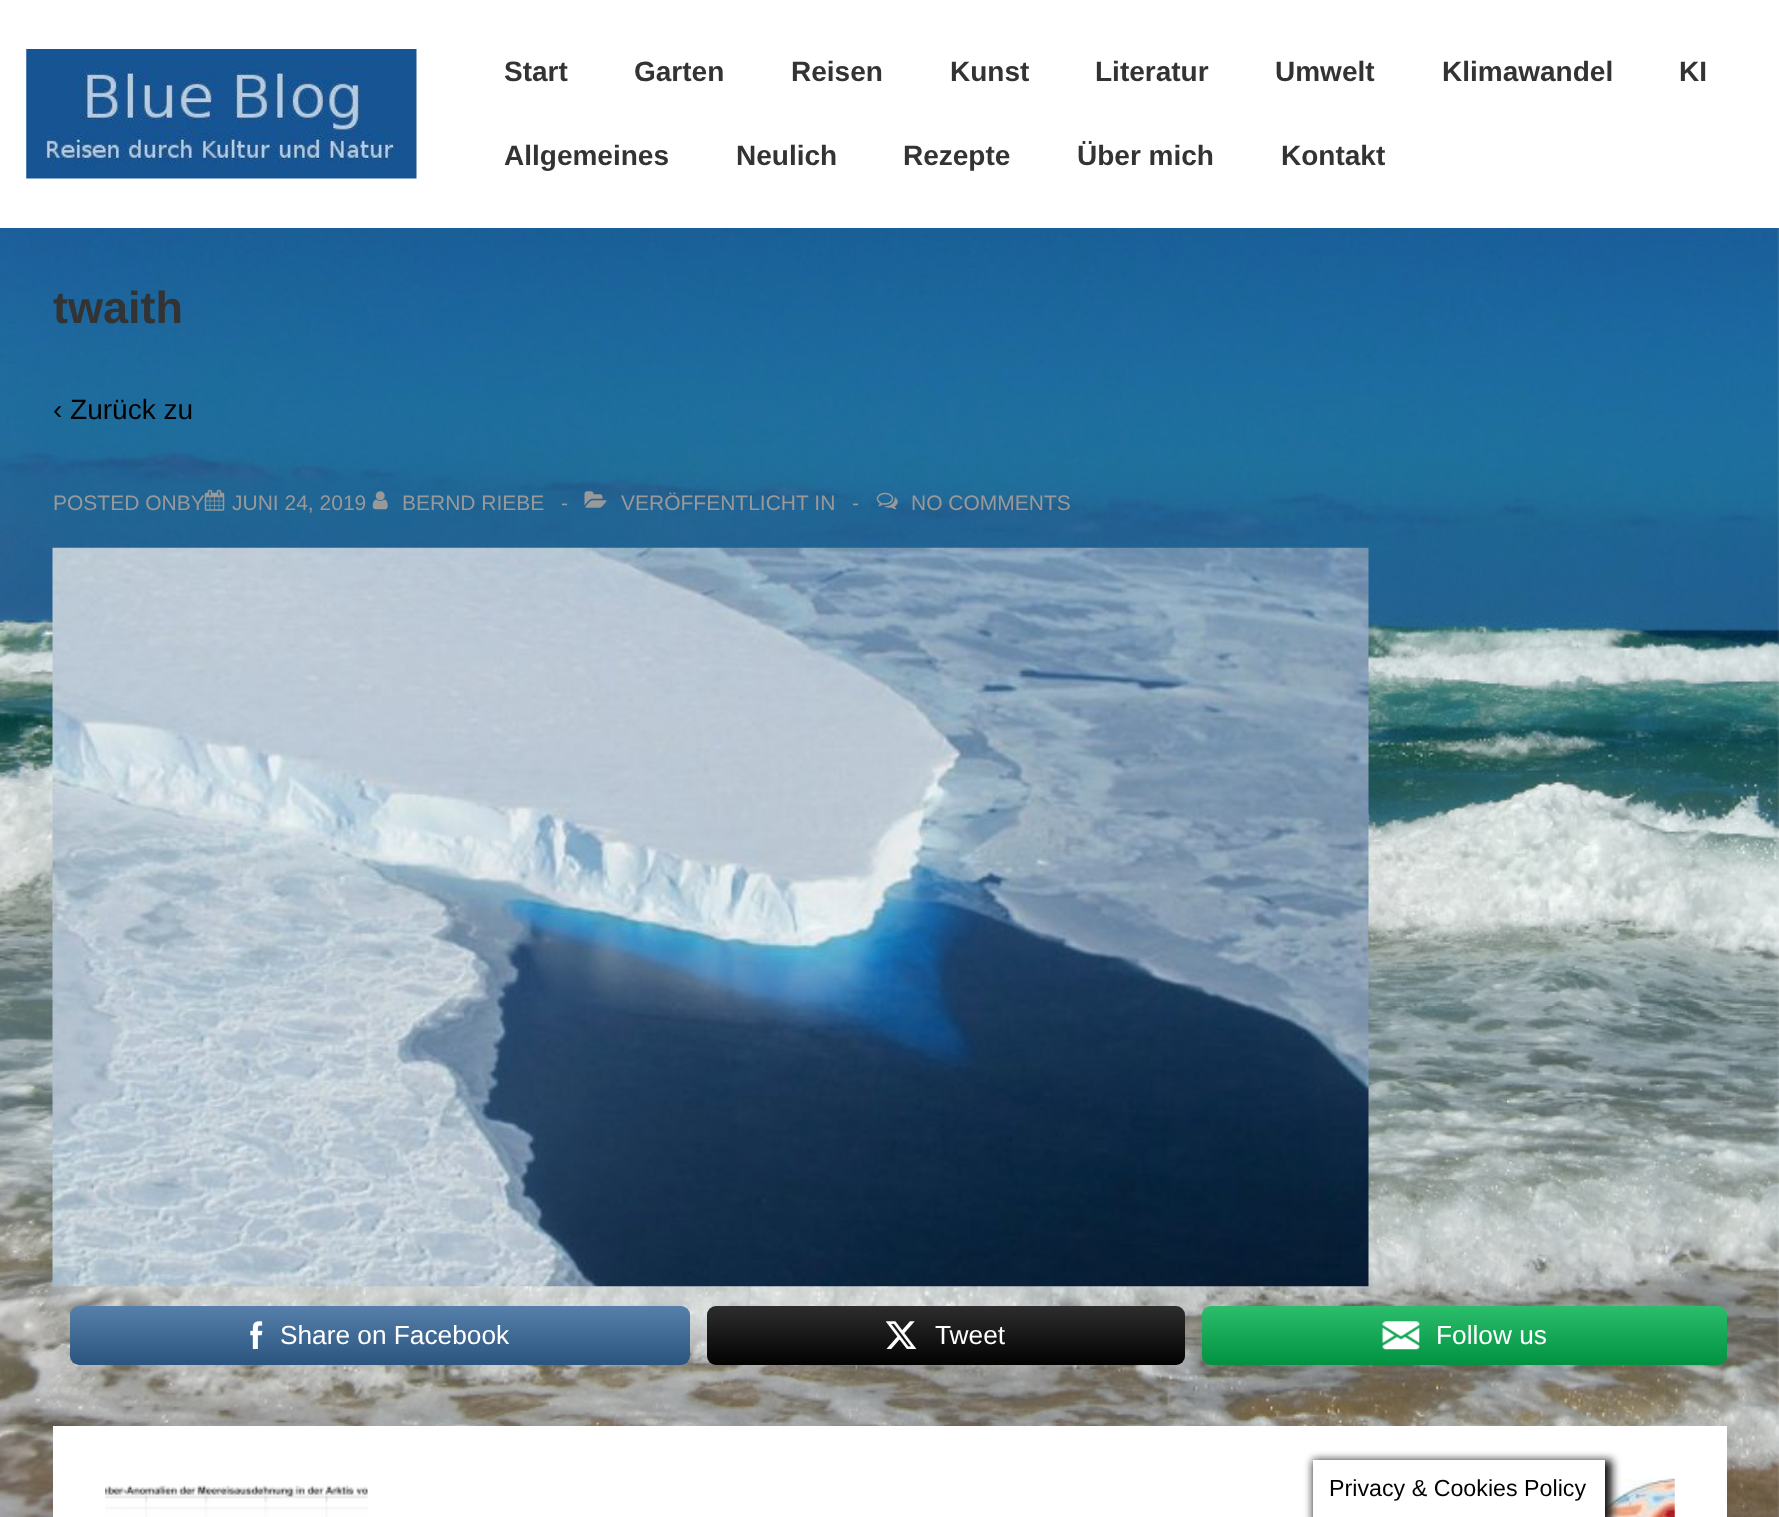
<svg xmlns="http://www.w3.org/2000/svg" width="1779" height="1517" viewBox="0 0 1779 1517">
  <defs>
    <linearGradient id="g1" gradientUnits="userSpaceOnUse" x1="380" y1="1365" x2="380" y2="1306"><stop offset="0" stop-color="#000000" stop-opacity="0.17"/><stop offset="1" stop-color="#ffffff" stop-opacity="0.17"/></linearGradient>
    <linearGradient id="g2" gradientUnits="userSpaceOnUse" x1="946" y1="1365" x2="946" y2="1306"><stop offset="0" stop-color="#000000" stop-opacity="0.17"/><stop offset="1" stop-color="#ffffff" stop-opacity="0.17"/></linearGradient>
    <linearGradient id="g3" gradientUnits="userSpaceOnUse" x1="1465" y1="1365" x2="1465" y2="1306"><stop offset="0" stop-color="#000000" stop-opacity="0.17"/><stop offset="1" stop-color="#ffffff" stop-opacity="0.17"/></linearGradient>
    <filter id="blur1" x="-50%" y="-200%" width="200%" height="500%"><feGaussianBlur stdDeviation="4.5"/></filter>
  </defs>
  <rect width="100%" height="100%" fill="#ffffff"/>
  <image x="0" y="228" width="1779" height="1289" href="img1.png"/>
  <image x="26" y="49" width="391" height="130" href="img2.png"/>
  <text x="504" y="81" font-family="Liberation Sans" font-size="28" font-weight="bold" fill="#333333">Start</text>
  <text x="634" y="81" font-family="Liberation Sans" font-size="28" font-weight="bold" fill="#333333">Garten</text>
  <text x="791" y="81" font-family="Liberation Sans" font-size="28" font-weight="bold" fill="#333333">Reisen</text>
  <text x="950" y="81" font-family="Liberation Sans" font-size="28" font-weight="bold" fill="#333333">Kunst</text>
  <text x="1095" y="81" font-family="Liberation Sans" font-size="28" font-weight="bold" fill="#333333">Literatur</text>
  <text x="1275" y="81" font-family="Liberation Sans" font-size="28" font-weight="bold" fill="#333333">Umwelt</text>
  <text x="1442" y="81" font-family="Liberation Sans" font-size="28" font-weight="bold" fill="#333333">Klimawandel</text>
  <text x="1679" y="81" font-family="Liberation Sans" font-size="28" font-weight="bold" fill="#333333">KI</text>
  <text x="504" y="165" font-family="Liberation Sans" font-size="28" font-weight="bold" fill="#333333">Allgemeines</text>
  <text x="736" y="165" font-family="Liberation Sans" font-size="28" font-weight="bold" fill="#333333">Neulich</text>
  <text x="903" y="165" font-family="Liberation Sans" font-size="28" font-weight="bold" fill="#333333">Rezepte</text>
  <text x="1077" y="165" font-family="Liberation Sans" font-size="28" font-weight="bold" fill="#333333">Über mich</text>
  <text x="1281" y="165" font-family="Liberation Sans" font-size="28" font-weight="bold" fill="#333333">Kontakt</text>
  <text x="53" y="323" font-family="Liberation Sans" font-size="45" font-weight="bold" fill="#333333">twaith</text>
  <text x="53" y="419" font-family="Liberation Sans" font-size="28" fill="#000000">‹ Zurück zu</text>
  <text x="53" y="510" font-family="Liberation Sans" font-size="21" fill="#999999">POSTED ONBY</text>
  <image x="204" y="489" width="21" height="22" href="img3.png"/>
  <text x="232" y="510" font-family="Liberation Sans" font-size="21" fill="#999999">JUNI 24, 2019</text>
  <image x="372" y="491" width="16" height="19" href="img4.png"/>
  <text x="402" y="510" font-family="Liberation Sans" font-size="21" fill="#999999">BERND RIEBE</text>
  <text x="561" y="510" font-family="Liberation Sans" font-size="21" fill="#999999">-</text>
  <image x="584" y="491" width="23" height="17" href="img5.png"/>
  <text x="621" y="510" font-family="Liberation Sans" font-size="21" fill="#999999">VERÖFFENTLICHT IN</text>
  <text x="852" y="510" font-family="Liberation Sans" font-size="21" fill="#999999">-</text>
  <image x="876" y="492" width="22" height="18" href="img6.png"/>
  <text x="911" y="510" font-family="Liberation Sans" font-size="21" fill="#999999">NO COMMENTS</text>
  <image x="52" y="547" width="1317" height="740" href="img7.png"/>
  <rect x="70" y="1306" width="620" height="59" rx="9" fill="#336699"/>
  <rect x="70" y="1306" width="620" height="59" rx="9" fill="url(#g1)"/>
  <image x="250" y="1321" width="13" height="28" href="img8.png"/>
  <text x="280" y="1344" font-family="Liberation Sans" font-size="26.25" fill="#ffffff">Share on Facebook</text>
  <rect x="707" y="1306" width="478" height="59" rx="9" fill="#020202"/>
  <rect x="707" y="1306" width="478" height="59" rx="9" fill="url(#g2)"/>
  <image x="886" y="1321" width="31" height="28" href="img9.png"/>
  <text x="935" y="1344" font-family="Liberation Sans" font-size="26.25" fill="#ffffff">Tweet</text>
  <rect x="1202" y="1306" width="525" height="59" rx="9" fill="#00b04e"/>
  <rect x="1202" y="1306" width="525" height="59" rx="9" fill="url(#g3)"/>
  <image x="1382" y="1321" width="38" height="29" href="img10.png"/>
  <text x="1436" y="1344" font-family="Liberation Sans" font-size="26.25" fill="#ffffff">Follow us</text>
  <rect x="53" y="1426" width="1674" height="91" fill="#ffffff"/>
  <image x="105" y="1485" width="263" height="32" href="img11.png"/>
  <image x="1605" y="1478" width="70" height="39" href="img12.png"/>
  <rect x="1313" y="1460" width="299" height="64" fill="#161616" filter="url(#blur1)"/>
  <rect x="1313" y="1460" width="292" height="57" fill="#ffffff"/>
  <text x="1329" y="1496" font-family="Liberation Sans" font-size="23.25" fill="#000000">Privacy &amp; Cookies Policy</text>
</svg>
